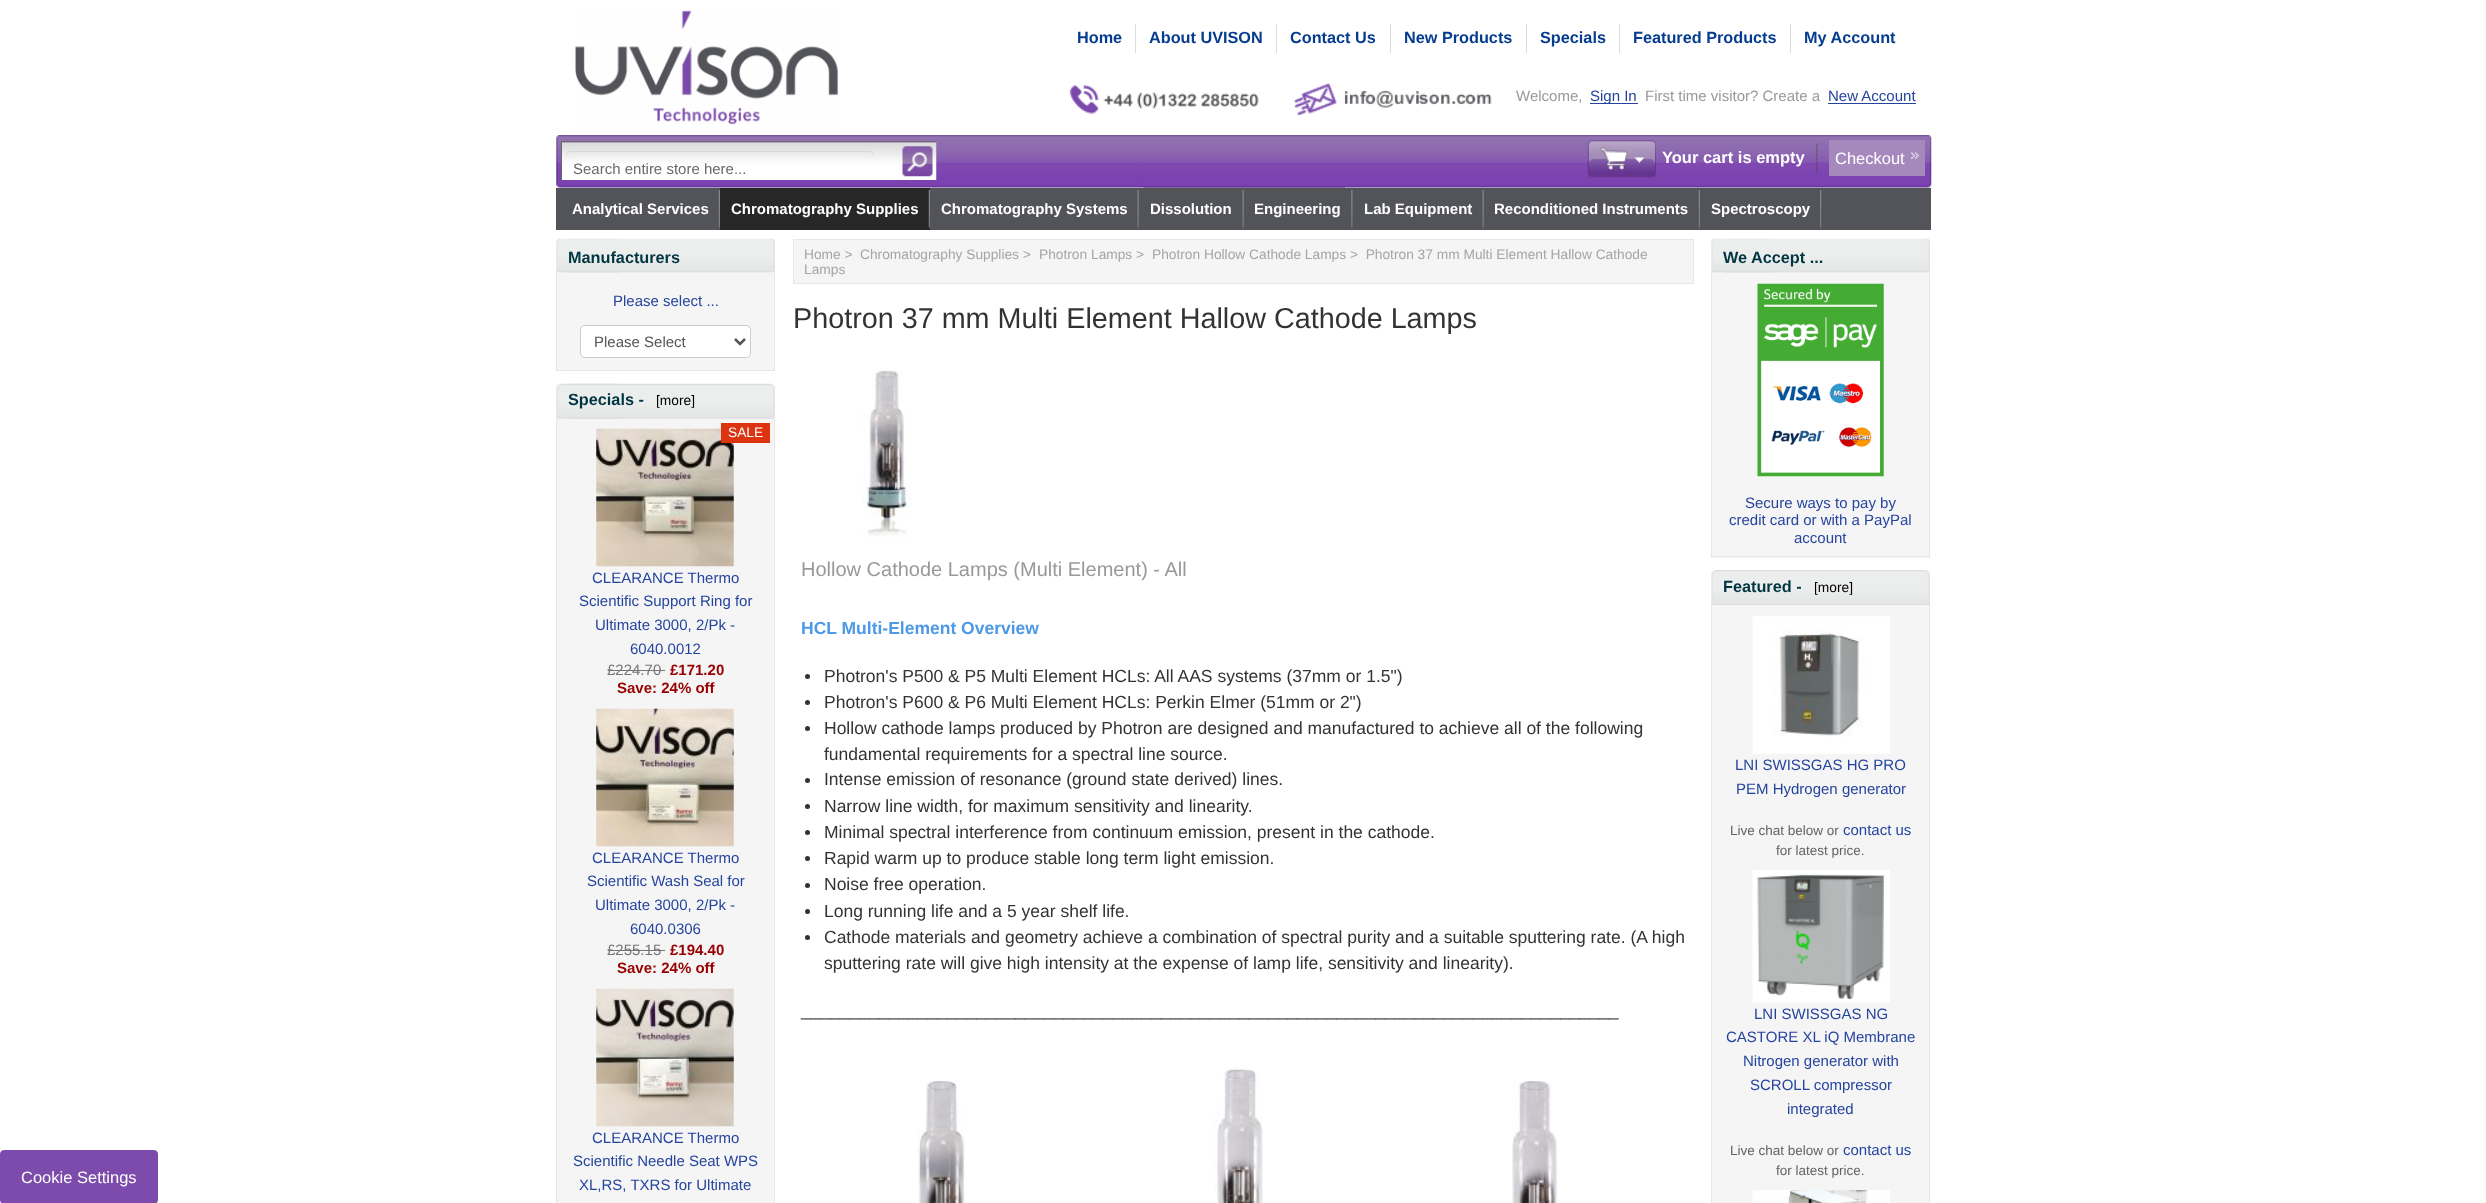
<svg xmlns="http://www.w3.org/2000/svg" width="2486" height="1203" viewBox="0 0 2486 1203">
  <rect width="100%" height="100%" fill="#ffffff"/>
  <image x="575" y="10" width="263" height="115" href="img1.png"/>
  <text x="1077" y="43" font-family="Liberation Sans" font-size="16.25" font-weight="bold" fill="#053c90">Home</text>
  <rect x="1135" y="24" width="1" height="29" fill="#dcdcdc"/>
  <text x="1149" y="43" font-family="Liberation Sans" font-size="16.25" font-weight="bold" fill="#053c90">About UVISON</text>
  <rect x="1276" y="24" width="1" height="29" fill="#dcdcdc"/>
  <text x="1290" y="43" font-family="Liberation Sans" font-size="16.25" font-weight="bold" fill="#053c90">Contact Us</text>
  <rect x="1390" y="24" width="1" height="29" fill="#dcdcdc"/>
  <text x="1404" y="43" font-family="Liberation Sans" font-size="16.25" font-weight="bold" fill="#053c90">New Products</text>
  <rect x="1526" y="24" width="1" height="29" fill="#dcdcdc"/>
  <text x="1540" y="43" font-family="Liberation Sans" font-size="16.25" font-weight="bold" fill="#053c90">Specials</text>
  <rect x="1619" y="24" width="1" height="29" fill="#dcdcdc"/>
  <text x="1633" y="43" font-family="Liberation Sans" font-size="16.25" font-weight="bold" fill="#053c90">Featured Products</text>
  <rect x="1790" y="24" width="1" height="29" fill="#dcdcdc"/>
  <text x="1804" y="43" font-family="Liberation Sans" font-size="16.25" font-weight="bold" fill="#053c90">My Account</text>
  <image x="1069" y="84" width="190" height="30" href="img2.png"/>
  <image x="1293" y="83" width="199" height="33" href="img3.png"/>
  <text x="1516" y="101" font-family="Liberation Sans" font-size="15" fill="#999999">Welcome,</text>
  <rect x="1590" y="103" width="48" height="1" fill="#25449e"/>
  <text x="1590" y="101" font-family="Liberation Sans" font-size="15" fill="#25449e">Sign In</text>
  <text x="1645" y="101" font-family="Liberation Sans" font-size="15" fill="#999999">First time visitor? Create a</text>
  <text x="1828" y="101" font-family="Liberation Sans" font-size="15" fill="#25449e">New Account</text>
  <rect x="1828" y="103" width="88" height="1" fill="#25449e"/>
  <image x="556" y="135" width="789" height="53" href="img4.png"/>
  <image x="1143" y="135" width="789" height="53" href="img5.png"/>
  <image x="1587" y="140" width="69" height="38" href="img6.png"/>
  <text x="1662" y="163" font-family="Liberation Sans" font-size="16.5" font-weight="bold" fill="#ffffff">Your cart is empty</text>
  <image x="1816" y="143" width="2" height="30" href="img7.png"/>
  <rect x="1829" y="140" width="96" height="36" fill="#a589bd"/>
  <image x="1911" y="152" width="8" height="7" href="img8.png"/>
  <text x="1835" y="164" font-family="Liberation Sans" font-size="16.5" fill="#ffffff">Checkout</text>
  <image x="562" y="142" width="375" height="38" href="img9.png"/>
  <rect x="561" y="141" width="375" height="1" fill="#696969"/>
  <rect x="561" y="141" width="1" height="39" fill="#696969"/>
  <path d="M571 152H869C872 152 874 155 874 158V156C874 153 872 151 869 151H571C568 151 566 153 566 156V158C566 155 568 152 571 152Z" fill="#000000" fill-opacity="0.07"/>
  <text x="573" y="174" font-family="Liberation Sans" font-size="15" fill="#696969">Search entire store here...</text>
  <image x="902" y="146" width="31" height="31" href="img10.png"/>
  <rect x="556" y="188" width="1375" height="42" fill="#535459"/>
  <image x="718" y="190" width="2" height="38" href="img11.png"/>
  <text x="572" y="214" font-family="Liberation Sans" font-size="15" font-weight="bold" fill="#ffffff">Analytical Services</text>
  <rect x="720" y="188" width="210" height="42" fill="#272727"/>
  <image x="928" y="190" width="2" height="38" href="img12.png"/>
  <text x="731" y="214" font-family="Liberation Sans" font-size="15" font-weight="bold" fill="#ffffff">Chromatography Supplies</text>
  <image x="1137" y="190" width="2" height="38" href="img13.png"/>
  <text x="941" y="214" font-family="Liberation Sans" font-size="15" font-weight="bold" fill="#ffffff">Chromatography Systems</text>
  <image x="1242" y="190" width="2" height="38" href="img13.png"/>
  <text x="1150" y="214" font-family="Liberation Sans" font-size="15" font-weight="bold" fill="#ffffff">Dissolution</text>
  <image x="1351" y="190" width="2" height="38" href="img14.png"/>
  <text x="1254" y="214" font-family="Liberation Sans" font-size="15" font-weight="bold" fill="#ffffff">Engineering</text>
  <image x="1482" y="190" width="2" height="38" href="img13.png"/>
  <text x="1364" y="214" font-family="Liberation Sans" font-size="15" font-weight="bold" fill="#ffffff">Lab Equipment</text>
  <image x="1698" y="190" width="2" height="38" href="img11.png"/>
  <text x="1494" y="214" font-family="Liberation Sans" font-size="15" font-weight="bold" fill="#ffffff">Reconditioned Instruments</text>
  <image x="1820" y="190" width="2" height="38" href="img15.png"/>
  <text x="1711" y="214" font-family="Liberation Sans" font-size="15" font-weight="bold" fill="#ffffff">Spectroscopy</text>
  <rect x="0.5" y="1150.5" width="157" height="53" rx="3.5" fill="#7c4bac" stroke="#7c4bac"/>
  <text x="21" y="1183" font-family="Liberation Sans" font-size="16.5" fill="#ffffff">Cookie Settings</text>
  <image x="556" y="238" width="64" height="35" href="img16.png"/>
  <image x="569" y="238" width="206" height="35" href="img17.png"/>
  <text x="568" y="263" font-family="Liberation Sans" font-size="16.25" font-weight="bold" fill="#003542">Manufacturers</text>
  <rect x="557" y="273" width="217" height="97" fill="#f5f5f5"/>
  <rect x="774" y="273" width="1" height="98" fill="#e6e6e6"/>
  <rect x="556" y="370" width="219" height="1" fill="#e6e6e6"/>
  <rect x="556" y="273" width="1" height="98" fill="#e6e6e6"/>
  <text x="613" y="306" font-family="Liberation Sans" font-size="15" fill="#25449e">Please select ...</text>
  <rect x="580.5" y="325.5" width="170" height="32" rx="4.5" fill="#ffffff" stroke="#cccccc"/>
  <path d="M735 339L740 344L745 339" fill="none" stroke="#555555" stroke-width="2.5"/>
  <text x="594" y="347" font-family="Liberation Sans" font-size="15" fill="#555555">Please Select</text>
  <image x="556" y="383" width="64" height="36" href="img18.png"/>
  <image x="569" y="383" width="206" height="36" href="img19.png"/>
  <text x="568" y="405" font-family="Liberation Sans" font-size="16.25" font-weight="bold" fill="#003542">Specials -</text>
  <text x="656" y="405" font-family="Liberation Sans" font-size="13.75" fill="#000000">[more]</text>
  <rect x="557" y="419" width="217" height="784" fill="#f5f5f5"/>
  <rect x="774" y="419" width="1" height="784" fill="#e6e6e6"/>
  <rect x="556" y="419" width="1" height="784" fill="#e6e6e6"/>
  <image x="596" y="428" width="138" height="139" href="img20.png"/>
  <rect x="721" y="423" width="49" height="20" fill="#dc3310"/>
  <text x="728" y="437" font-family="Liberation Sans" font-size="13.75" fill="#ffffff">SALE</text>
  <text x="592" y="583" font-family="Liberation Sans" font-size="15" fill="#25449e">CLEARANCE Thermo</text>
  <text x="579" y="606" font-family="Liberation Sans" font-size="15" fill="#25449e">Scientific Support Ring for</text>
  <text x="595" y="630" font-family="Liberation Sans" font-size="15" fill="#25449e">Ultimate 3000, 2/Pk -</text>
  <text x="630" y="654" font-family="Liberation Sans" font-size="15" fill="#25449e">6040.0012</text>
  <text x="607" y="675" font-family="Liberation Sans" font-size="15" fill="#757575">£224.70</text>
  <rect x="608" y="670" width="57" height="1" fill="#757575"/>
  <text x="670" y="675" font-family="Liberation Sans" font-size="15" font-weight="bold" fill="#990000">£171.20</text>
  <text x="617" y="693" font-family="Liberation Sans" font-size="15" font-weight="bold" fill="#990000">Save: 24% off</text>
  <image x="596" y="708" width="138" height="139" href="img21.png"/>
  <text x="592" y="863" font-family="Liberation Sans" font-size="15" fill="#25449e">CLEARANCE Thermo</text>
  <text x="587" y="886" font-family="Liberation Sans" font-size="15" fill="#25449e">Scientific Wash Seal for</text>
  <text x="595" y="910" font-family="Liberation Sans" font-size="15" fill="#25449e">Ultimate 3000, 2/Pk -</text>
  <text x="630" y="934" font-family="Liberation Sans" font-size="15" fill="#25449e">6040.0306</text>
  <text x="607" y="955" font-family="Liberation Sans" font-size="15" fill="#757575">£255.15</text>
  <rect x="608" y="950" width="57" height="1" fill="#757575"/>
  <text x="670" y="955" font-family="Liberation Sans" font-size="15" font-weight="bold" fill="#990000">£194.40</text>
  <text x="617" y="973" font-family="Liberation Sans" font-size="15" font-weight="bold" fill="#990000">Save: 24% off</text>
  <image x="596" y="988" width="138" height="139" href="img22.png"/>
  <text x="592" y="1143" font-family="Liberation Sans" font-size="15" fill="#25449e">CLEARANCE Thermo</text>
  <text x="573" y="1166" font-family="Liberation Sans" font-size="15" fill="#25449e">Scientific Needle Seat WPS</text>
  <text x="579" y="1190" font-family="Liberation Sans" font-size="15" fill="#25449e">XL,RS, TXRS for Ultimate</text>
  <rect x="793.5" y="239.5" width="900" height="44" fill="#f5f5f5" stroke="#e7e7e7"/>
  <text x="804" y="259" font-family="Liberation Sans" font-size="13.75" fill="#a5a5a5">Home &gt;</text>
  <text x="860" y="259" font-family="Liberation Sans" font-size="13.75" fill="#a5a5a5">Chromatography Supplies &gt;</text>
  <text x="1039" y="259" font-family="Liberation Sans" font-size="13.75" fill="#a5a5a5">Photron Lamps &gt;</text>
  <text x="1152" y="259" font-family="Liberation Sans" font-size="13.75" fill="#a5a5a5" xml:space="preserve">Photron Hollow Cathode Lamps &gt;  Photron 37 mm Multi Element Hallow Cathode</text>
  <text x="804" y="274" font-family="Liberation Sans" font-size="13.75" fill="#a5a5a5">Lamps</text>
  <text x="793" y="328" font-family="Liberation Sans" font-size="28.75" fill="#333333">Photron 37 mm Multi Element Hallow Cathode Lamps</text>
  <image x="862" y="370" width="50" height="167" href="img23.png"/>
  <text x="801" y="576" font-family="Liberation Sans" font-size="20" fill="#999999">Hollow Cathode Lamps (Multi Element) - All</text>
  <text x="801" y="634" font-family="Liberation Sans" font-size="17.5" font-weight="bold" fill="#4d99e6">HCL Multi-Element Overview</text>
  <circle cx="807.5" cy="676.5" r="2.5" fill="#333333"/>
  <text x="824" y="682" font-family="Liberation Sans" font-size="17.5" fill="#333333">Photron's P500 &amp; P5 Multi Element HCLs: All AAS systems (37mm or 1.5")</text>
  <circle cx="807.5" cy="702.5" r="2.5" fill="#333333"/>
  <text x="824" y="708" font-family="Liberation Sans" font-size="17.5" fill="#333333">Photron's P600 &amp; P6 Multi Element HCLs: Perkin Elmer (51mm or 2")</text>
  <circle cx="807.5" cy="728.5" r="2.5" fill="#333333"/>
  <text x="824" y="734" font-family="Liberation Sans" font-size="17.5" fill="#333333">Hollow cathode lamps produced by Photron are designed and manufactured to achieve all of the following</text>
  <text x="824" y="760" font-family="Liberation Sans" font-size="17.5" fill="#333333">fundamental requirements for a spectral line source.</text>
  <circle cx="807.5" cy="780.5" r="2.5" fill="#333333"/>
  <text x="824" y="785" font-family="Liberation Sans" font-size="17.5" fill="#333333">Intense emission of resonance (ground state derived) lines.</text>
  <circle cx="807.5" cy="806.5" r="2.5" fill="#333333"/>
  <text x="824" y="812" font-family="Liberation Sans" font-size="17.5" fill="#333333">Narrow line width, for maximum sensitivity and linearity.</text>
  <circle cx="807.5" cy="832.5" r="2.5" fill="#333333"/>
  <text x="824" y="838" font-family="Liberation Sans" font-size="17.5" fill="#333333">Minimal spectral interference from continuum emission, present in the cathode.</text>
  <circle cx="807.5" cy="858.5" r="2.5" fill="#333333"/>
  <text x="824" y="864" font-family="Liberation Sans" font-size="17.5" fill="#333333">Rapid warm up to produce stable long term light emission.</text>
  <circle cx="807.5" cy="885.5" r="2.5" fill="#333333"/>
  <text x="824" y="890" font-family="Liberation Sans" font-size="17.5" fill="#333333">Noise free operation.</text>
  <circle cx="807.5" cy="911.5" r="2.5" fill="#333333"/>
  <text x="824" y="917" font-family="Liberation Sans" font-size="17.5" fill="#333333">Long running life and a 5 year shelf life.</text>
  <circle cx="807.5" cy="937.5" r="2.5" fill="#333333"/>
  <text x="824" y="943" font-family="Liberation Sans" font-size="17.5" fill="#333333">Cathode materials and geometry achieve a combination of spectral purity and a suitable sputtering rate. (A high</text>
  <text x="824" y="969" font-family="Liberation Sans" font-size="17.5" fill="#333333">sputtering rate will give high intensity at the expense of lamp life, sensitivity and linearity).</text>
  <text x="801" y="1016" font-family="Liberation Sans" font-size="17.5" fill="#333333">____________________________________________________________________________________</text>
  <image x="917" y="1080" width="49" height="123" href="img24.png"/>
  <image x="1214" y="1068" width="49" height="135" href="img25.png"/>
  <image x="1512" y="1081" width="46" height="122" href="img26.png"/>
  <image x="1711" y="238" width="63" height="35" href="img27.png"/>
  <image x="1724" y="238" width="206" height="35" href="img28.png"/>
  <text x="1723" y="263" font-family="Liberation Sans" font-size="16.25" font-weight="bold" fill="#003542">We Accept ...</text>
  <rect x="1712" y="273" width="217" height="285" fill="#f5f5f5"/>
  <rect x="1929" y="273" width="1" height="285" fill="#e6e6e6"/>
  <rect x="1711" y="556" width="219" height="1" fill="#e6e6e6"/>
  <rect x="1711" y="273" width="1" height="285" fill="#e6e6e6"/>
  <image x="1757" y="283" width="127" height="194" href="img29.png"/>
  <text x="1745" y="508" font-family="Liberation Sans" font-size="15" fill="#25449e">Secure ways to pay by</text>
  <text x="1729" y="525" font-family="Liberation Sans" font-size="15" fill="#25449e">credit card or with a PayPal</text>
  <text x="1794" y="543" font-family="Liberation Sans" font-size="15" fill="#25449e">account</text>
  <image x="1711" y="570" width="62" height="35" href="img30.png"/>
  <image x="1773" y="570" width="157" height="35" href="img31.png"/>
  <text x="1723" y="592" font-family="Liberation Sans" font-size="16.25" font-weight="bold" fill="#003542">Featured -</text>
  <text x="1814" y="592" font-family="Liberation Sans" font-size="13.75" fill="#000000">[more]</text>
  <rect x="1712" y="605" width="217" height="598" fill="#f5f5f5"/>
  <rect x="1929" y="605" width="1" height="598" fill="#e6e6e6"/>
  <rect x="1711" y="605" width="1" height="598" fill="#e6e6e6"/>
  <image x="1752" y="616" width="138" height="138" href="img32.png"/>
  <text x="1735" y="770" font-family="Liberation Sans" font-size="15" fill="#25449e">LNI SWISSGAS HG PRO</text>
  <text x="1736" y="794" font-family="Liberation Sans" font-size="15" fill="#25449e">PEM Hydrogen generator</text>
  <text x="1730" y="835" font-family="Liberation Sans" font-size="13.5" fill="#666262">Live chat below or</text>
  <text x="1843" y="835" font-family="Liberation Sans" font-size="15" fill="#25449e">contact us</text>
  <text x="1776" y="855" font-family="Liberation Sans" font-size="13.5" fill="#666262">for latest price.</text>
  <image x="1752" y="870" width="138" height="133" href="img33.png"/>
  <text x="1754" y="1019" font-family="Liberation Sans" font-size="15" fill="#25449e">LNI SWISSGAS NG</text>
  <text x="1726" y="1042" font-family="Liberation Sans" font-size="15" fill="#25449e">CASTORE XL iQ Membrane</text>
  <text x="1743" y="1066" font-family="Liberation Sans" font-size="15" fill="#25449e">Nitrogen generator with</text>
  <text x="1750" y="1090" font-family="Liberation Sans" font-size="15" fill="#25449e">SCROLL compressor</text>
  <text x="1787" y="1114" font-family="Liberation Sans" font-size="15" fill="#25449e">integrated</text>
  <text x="1730" y="1155" font-family="Liberation Sans" font-size="13.5" fill="#666262">Live chat below or</text>
  <text x="1843" y="1155" font-family="Liberation Sans" font-size="15" fill="#25449e">contact us</text>
  <text x="1776" y="1175" font-family="Liberation Sans" font-size="13.5" fill="#666262">for latest price.</text>
  <image x="1752" y="1190" width="138" height="13" href="img34.png"/>
</svg>
